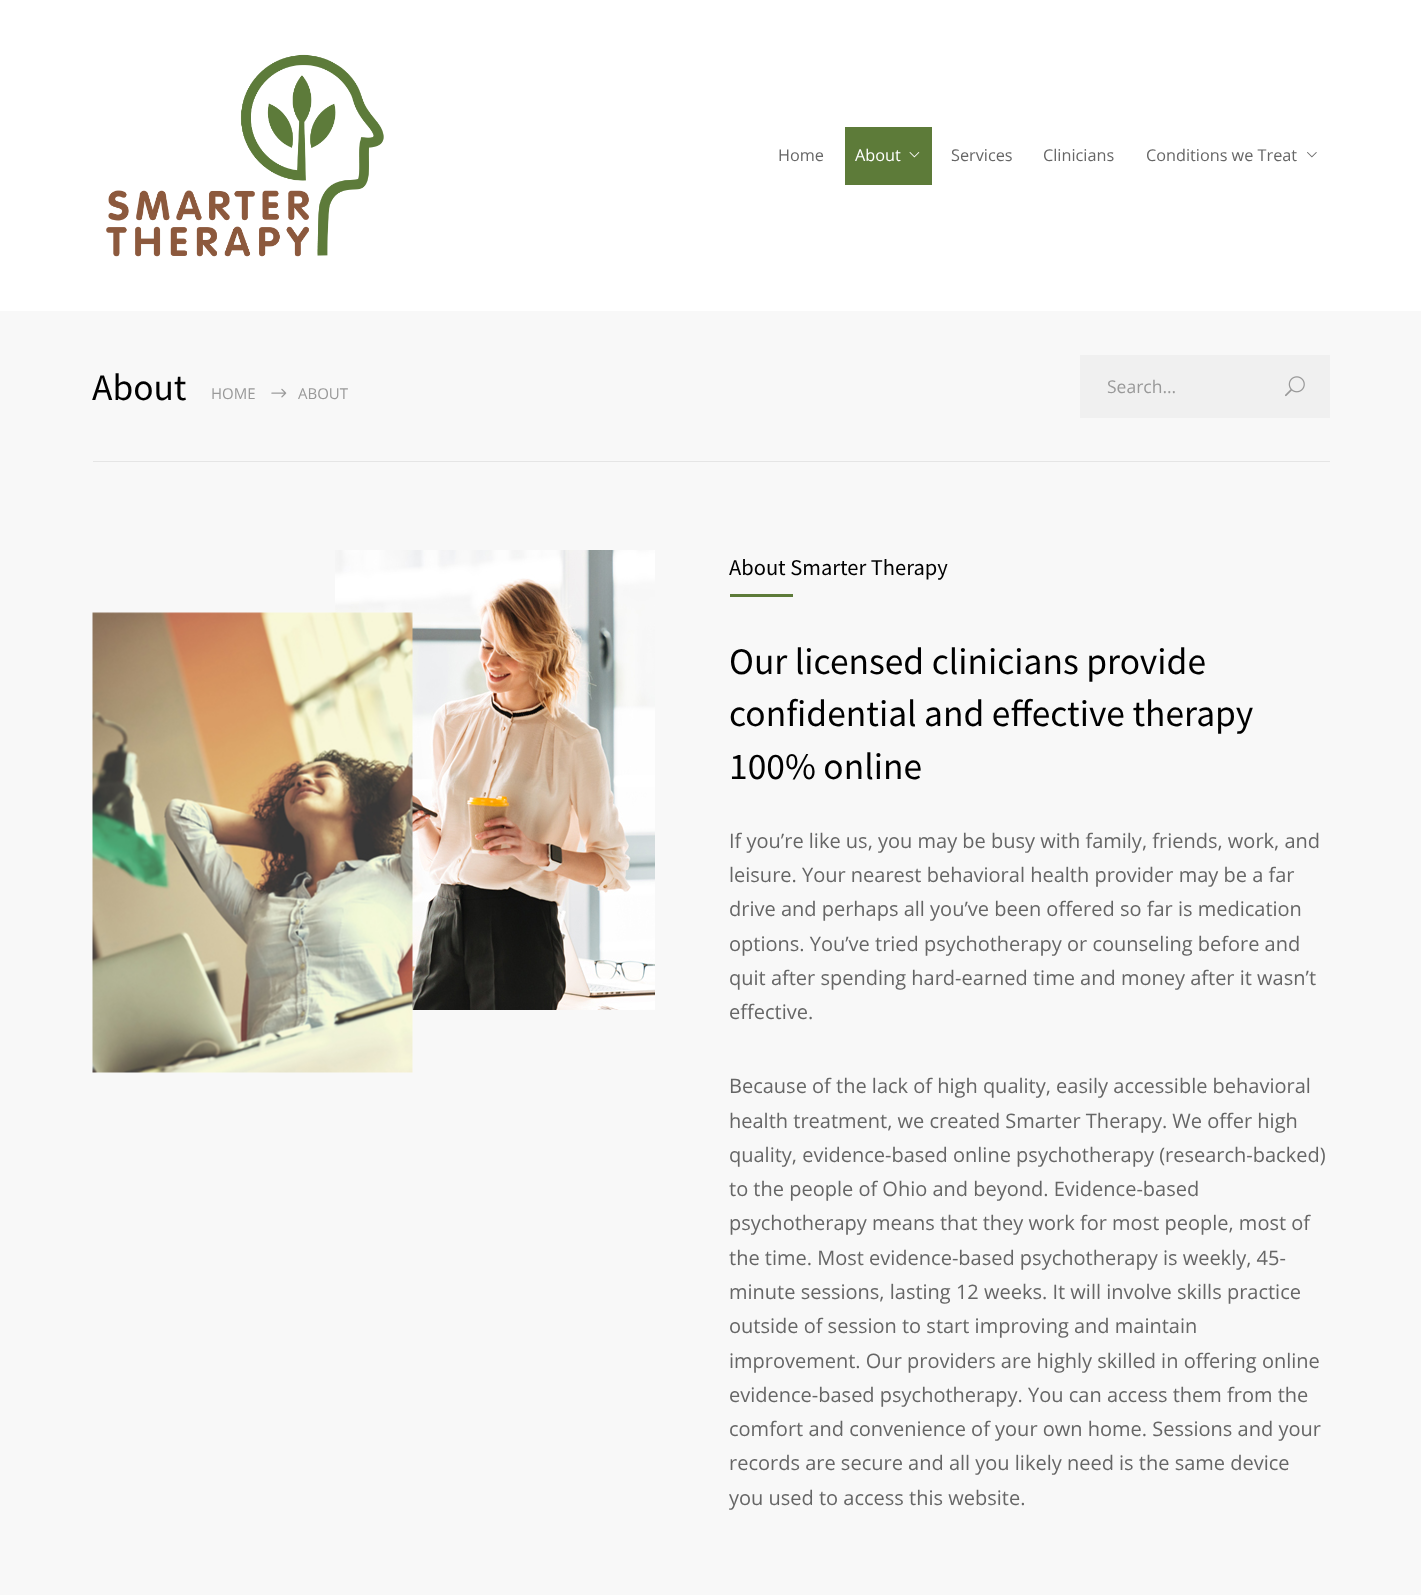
<svg xmlns="http://www.w3.org/2000/svg" width="1421" height="1595" viewBox="0 0 1421 1595">
  <rect width="100%" height="100%" fill="#f8f8f8"/>
  <rect x="0" y="0" width="1421" height="311" fill="#ffffff"/>
  <image x="106" y="54" width="278" height="203" href="img1.png"/>
  <text x="778" y="161" font-family="Open Sans" font-size="16.25" fill="#666666">Home</text>
  <rect x="845" y="127" width="87" height="58" fill="#5d7b39"/>
  <text x="855" y="161" font-family="Open Sans" font-size="16.25" fill="#ffffff">About</text>
  <image x="909" y="152" width="11" height="6" href="img2.png"/>
  <text x="951" y="161" font-family="Open Sans" font-size="16.25" fill="#666666">Services</text>
  <text x="1043" y="161" font-family="Open Sans" font-size="16.25" fill="#666666">Clinicians</text>
  <text x="1146" y="161" font-family="Open Sans" font-size="16.25" fill="#666666">Conditions we Treat</text>
  <image x="1307" y="152" width="10" height="6" href="img3.png"/>
  <rect x="93" y="461" width="1237" height="1" fill="#e5e5e5"/>
  <text x="92" y="400" font-family="Source Sans Pro" font-size="37.5" fill="#000000">About</text>
  <text x="211" y="399" font-family="Open Sans" font-size="15" fill="#999999">HOME</text>
  <image x="271" y="388" width="16" height="10" href="img4.png"/>
  <text x="298" y="399" font-family="Open Sans" font-size="15" fill="#999999">ABOUT</text>
  <rect x="1080" y="355" width="250" height="63" fill="#f0f0f0"/>
  <text x="1107" y="393" font-family="Open Sans" font-size="17.5" fill="#999999">Search...</text>
  <image x="1285" y="376" width="20" height="21" href="img5.png"/>
  <image x="335" y="550" width="320" height="460" href="img7.png"/>
  <image x="92" y="612" width="321" height="461" href="img6.png"/>
  <text x="729" y="575" font-family="Source Sans Pro" font-size="22.5" fill="#000000">About Smarter Therapy</text>
  <rect x="730" y="594" width="63" height="3" fill="#5d7b39"/>
  <text x="729" y="674" font-family="Source Sans Pro" font-size="37.5" fill="#000000">Our licensed clinicians provide</text>
  <text x="729" y="726" font-family="Source Sans Pro" font-size="37.5" fill="#000000">confidential and effective therapy</text>
  <text x="729" y="779" font-family="Source Sans Pro" font-size="37.5" fill="#000000">100% online</text>
  <text x="729" y="848" font-family="Open Sans" font-size="20" fill="#666666">If you’re like us, you may be busy with family, friends, work, and</text>
  <text x="729" y="882" font-family="Open Sans" font-size="20" fill="#666666">leisure. Your nearest behavioral health provider may be a far</text>
  <text x="729" y="916" font-family="Open Sans" font-size="20" fill="#666666">drive and perhaps all you’ve been offered so far is medication</text>
  <text x="729" y="951" font-family="Open Sans" font-size="20" fill="#666666">options. You’ve tried psychotherapy or counseling before and</text>
  <text x="729" y="985" font-family="Open Sans" font-size="20" fill="#666666">quit after spending hard-earned time and money after it wasn’t</text>
  <text x="729" y="1019" font-family="Open Sans" font-size="20" fill="#666666">effective.</text>
  <text x="729" y="1093" font-family="Open Sans" font-size="20" fill="#666666">Because of the lack of high quality, easily accessible behavioral</text>
  <text x="729" y="1128" font-family="Open Sans" font-size="20" fill="#666666">health treatment, we created Smarter Therapy. We offer high</text>
  <text x="729" y="1162" font-family="Open Sans" font-size="20" fill="#666666">quality, evidence-based online psychotherapy (research-backed)</text>
  <text x="729" y="1196" font-family="Open Sans" font-size="20" fill="#666666">to the people of Ohio and beyond. Evidence-based</text>
  <text x="729" y="1230" font-family="Open Sans" font-size="20" fill="#666666">psychotherapy means that they work for most people, most of</text>
  <text x="729" y="1265" font-family="Open Sans" font-size="20" fill="#666666">the time. Most evidence-based psychotherapy is weekly, 45-</text>
  <text x="729" y="1299" font-family="Open Sans" font-size="20" fill="#666666">minute sessions, lasting 12 weeks. It will involve skills practice</text>
  <text x="729" y="1333" font-family="Open Sans" font-size="20" fill="#666666">outside of session to start improving and maintain</text>
  <text x="729" y="1368" font-family="Open Sans" font-size="20" fill="#666666">improvement. Our providers are highly skilled in offering online</text>
  <text x="729" y="1402" font-family="Open Sans" font-size="20" fill="#666666">evidence-based psychotherapy. You can access them from the</text>
  <text x="729" y="1436" font-family="Open Sans" font-size="20" fill="#666666">comfort and convenience of your own home. Sessions and your</text>
  <text x="729" y="1470" font-family="Open Sans" font-size="20" fill="#666666">records are secure and all you likely need is the same device</text>
  <text x="729" y="1505" font-family="Open Sans" font-size="20" fill="#666666">you used to access this website.</text>
</svg>
